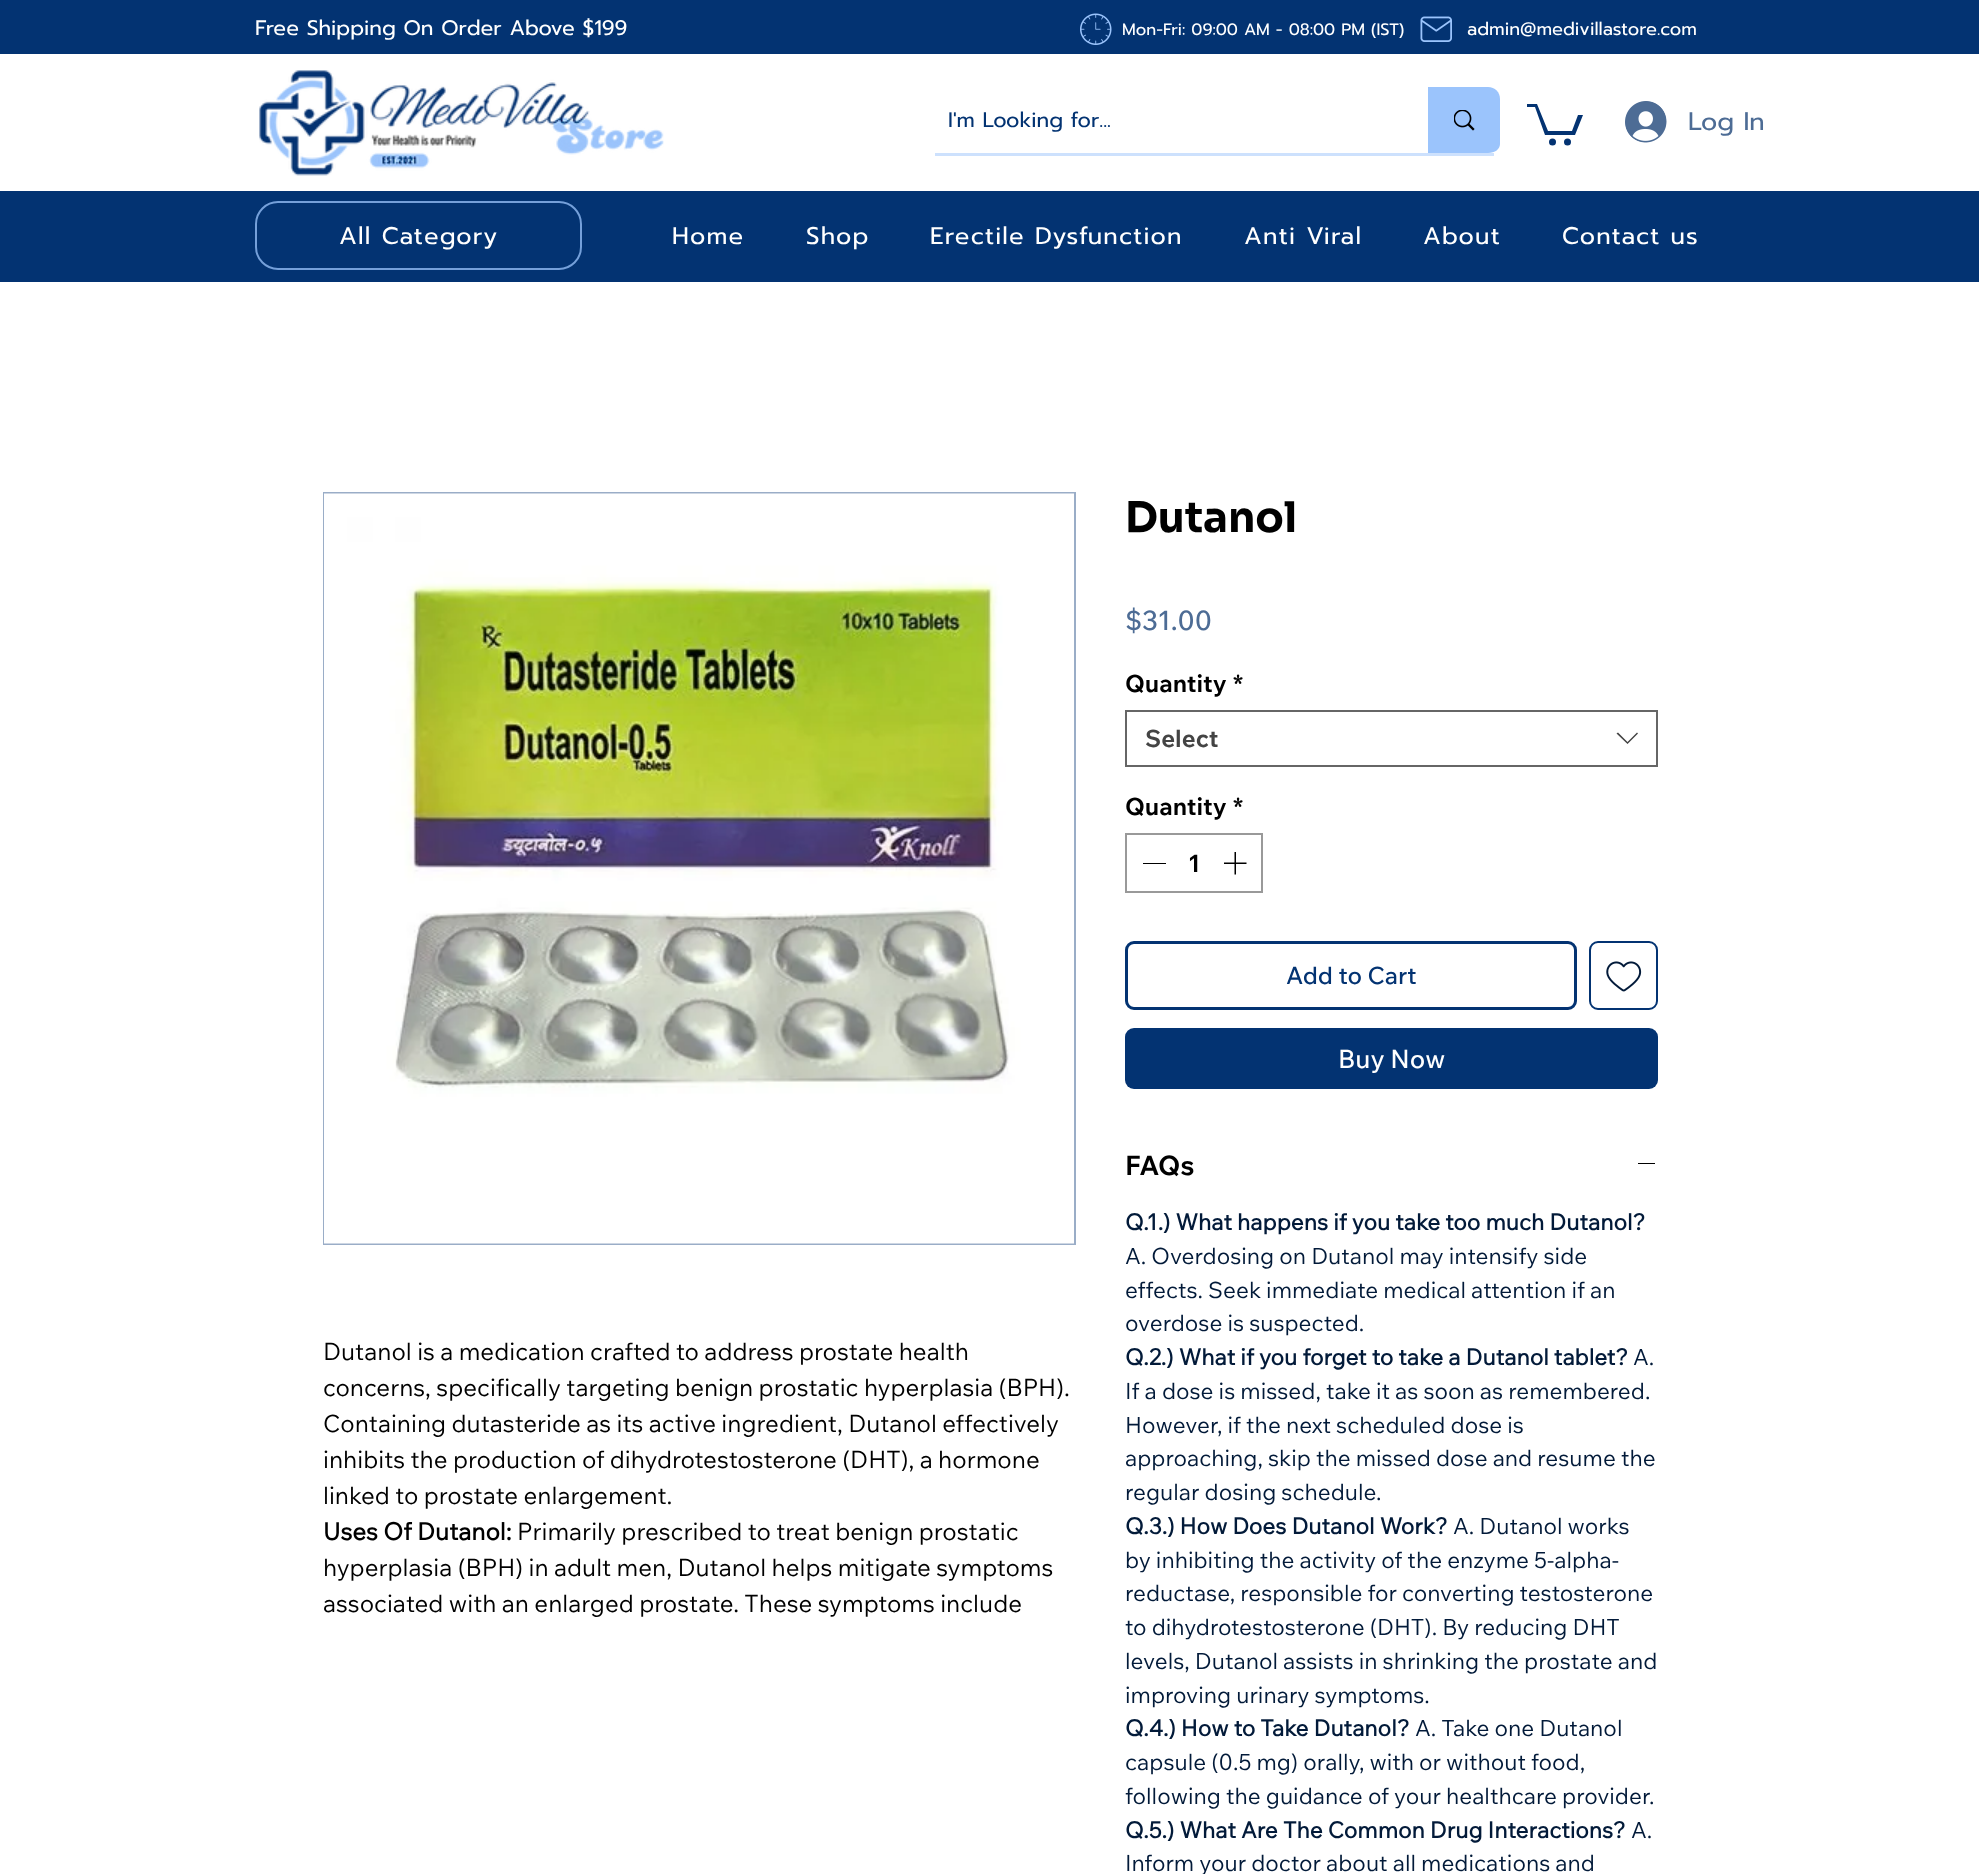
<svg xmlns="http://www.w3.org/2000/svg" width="1979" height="1874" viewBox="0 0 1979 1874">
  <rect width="100%" height="100%" fill="#ffffff"/>
  <rect x="0" y="0" width="1979" height="54" fill="#033372"/>
  <text x="255" y="35" font-family="Prompt" font-size="21" fill="#ffffff">Free Shipping On Order Above $199</text>
  <image x="1080" y="13" width="32" height="32" href="img1.png"/>
  <text x="1122" y="35" font-family="Prompt" font-size="16.5" fill="#ffffff">Mon-Fri: 09:00 AM - 08:00 PM (IST)</text>
  <image x="1420" y="16" width="32" height="26" href="img2.png"/>
  <text x="1467" y="35" font-family="Prompt" font-size="18" fill="#ffffff">admin@medivillastore.com</text>
  <image x="259" y="70" width="405" height="106" href="img3.png"/>
  <rect x="935" y="153" width="559" height="3" fill="#cde1fd"/>
  <text x="948" y="127" font-family="Prompt" font-size="21" fill="#033372">I'm Looking for...</text>
  <path d="M1428 87V153H1488C1495 153 1500 149 1500 144V99C1500 92 1495 87 1488 87Z" fill="#9bc4fc"/>
  <image x="1454" y="110" width="21" height="21" href="img4.png"/>
  <path d="M1583 115L1575 135H1545L1535 107H1527V104H1537L1548 131H1572L1578 115" fill="#033372"/>
  <circle cx="1567.5" cy="142" r="3.5" fill="#033372"/>
  <circle cx="1552.5" cy="142" r="3.5" fill="#033372"/>
  <image x="1625" y="101" width="42" height="42" href="img5.png"/>
  <text x="1688" y="130" font-family="Prompt" font-size="25.5" fill="#4d6c95">Log In</text>
  <rect x="0" y="191" width="1979" height="91" fill="#033372"/>
  <rect x="256" y="202" width="325" height="67" rx="22" fill="none" stroke="#75a0da" stroke-width="2"/>
  <text x="339" y="244" font-family="Prompt" font-size="24" letter-spacing="1.2" fill="#ffffff">All Category</text>
  <text x="672" y="244" font-family="Prompt" font-size="24" letter-spacing="1.2" fill="#ffffff">Home</text>
  <text x="806" y="244" font-family="Prompt" font-size="24" letter-spacing="1.2" fill="#ffffff">Shop</text>
  <text x="930" y="244" font-family="Prompt" font-size="24" letter-spacing="1.2" fill="#ffffff">Erectile Dysfunction</text>
  <text x="1244" y="244" font-family="Prompt" font-size="24" letter-spacing="1.2" fill="#ffffff">Anti Viral</text>
  <text x="1423" y="244" font-family="Prompt" font-size="24" letter-spacing="1.2" fill="#ffffff">About</text>
  <text x="1562" y="244" font-family="Prompt" font-size="24" letter-spacing="1.2" fill="#ffffff">Contact us</text>
  <rect x="324" y="493" width="751" height="751" fill="none" stroke="#9aadc7" stroke-width="2"/>
  <image x="324" y="493" width="750" height="751" href="img6.png"/>
  <text x="323" y="1360" font-family="Wix Madefor Text" font-size="24" fill="#000000">Dutanol is a medication crafted to address prostate health</text>
  <text x="323" y="1396" font-family="Wix Madefor Text" font-size="24" fill="#000000">concerns, specifically targeting benign prostatic hyperplasia (BPH).</text>
  <text x="323" y="1432" font-family="Wix Madefor Text" font-size="24" fill="#000000">Containing dutasteride as its active ingredient, Dutanol effectively</text>
  <text x="323" y="1468" font-family="Wix Madefor Text" font-size="24" fill="#000000">inhibits the production of dihydrotestosterone (DHT), a hormone</text>
  <text x="323" y="1504" font-family="Wix Madefor Text" font-size="24" fill="#000000">linked to prostate enlargement.</text>
  <text x="323" y="1540" font-family="Wix Madefor Text" font-size="24" font-weight="bold" fill="#000000">Uses Of Dutanol:</text>
  <text x="517" y="1540" font-family="Wix Madefor Text" font-size="24" fill="#000000">Primarily prescribed to treat benign prostatic</text>
  <text x="323" y="1576" font-family="Wix Madefor Text" font-size="24" fill="#000000">hyperplasia (BPH) in adult men, Dutanol helps mitigate symptoms</text>
  <text x="323" y="1612" font-family="Wix Madefor Text" font-size="24" fill="#000000">associated with an enlarged prostate. These symptoms include</text>
  <text x="1125" y="532" font-family="Sora" font-size="42" font-weight="bold" fill="#000000">Dutanol</text>
  <text x="1125" y="630" font-family="Wix Madefor Text" font-size="27" font-weight="500" fill="#4d6c95">$31.00</text>
  <text x="1125" y="692" font-family="'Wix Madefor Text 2'" font-size="24" font-weight="bold" fill="#000000">Quantity</text>
  <text x="1233" y="692" font-family="'Wix Madefor Text 2'" font-size="24" font-weight="bold" fill="#000000">*</text>
  <rect x="1126" y="711" width="531" height="55" fill="none" stroke="#666666" stroke-width="2"/>
  <text x="1145" y="747" font-family="'Wix Madefor Text 2'" font-size="24" font-weight="bold" fill="#444444">Select</text>
  <path d="M1637 732.5L1638 733.5L1627.5 744L1616.5 733.5L1618 732.5L1627.5 742Z" fill="#444444" fill-rule="evenodd"/>
  <text x="1125" y="815" font-family="'Wix Madefor Text 2'" font-size="24" font-weight="bold" fill="#000000">Quantity</text>
  <text x="1233" y="815" font-family="'Wix Madefor Text 2'" font-size="24" font-weight="bold" fill="#000000">*</text>
  <rect x="1126" y="834" width="136" height="58" fill="none" stroke="#999999" stroke-width="2"/>
  <rect x="1143" y="863" width="23" height="1" fill="#000000"/>
  <text x="1188" y="872" font-family="'Wix Madefor Text 2'" font-size="24" font-weight="bold" fill="#000000">1</text>
  <image x="1224" y="852" width="23" height="23" href="img7.png"/>
  <rect x="1126.5" y="942.5" width="449" height="66" rx="7.5" fill="none" stroke="#033372" stroke-width="3"/>
  <text x="1286" y="984" font-family="Wix Madefor Text" font-size="24" font-weight="500" fill="#033372">Add to Cart</text>
  <rect x="1590" y="942" width="67" height="67" rx="8" fill="none" stroke="#033372" stroke-width="2"/>
  <image x="1606" y="961" width="36" height="31" href="img8.png"/>
  <rect x="1125" y="1028" width="533" height="61" rx="9" fill="#033372"/>
  <text x="1338" y="1068" font-family="Wix Madefor Text" font-size="25.5" font-weight="500" fill="#ffffff">Buy Now</text>
  <text x="1125" y="1175" font-family="'Wix Madefor Text 2'" font-size="27" font-weight="bold" fill="#000000">FAQs</text>
  <rect x="1638" y="1163" width="17" height="1" fill="#000000"/>
  <text x="1125" y="1230" font-family="Wix Madefor Text" font-size="22.5" font-weight="bold" fill="#021a39">Q.1.) What happens if you take too much Dutanol?</text>
  <text x="1125" y="1264" font-family="Wix Madefor Text" font-size="22.5" fill="#021a39">A. Overdosing on Dutanol may intensify side</text>
  <text x="1125" y="1298" font-family="Wix Madefor Text" font-size="22.5" fill="#021a39">effects. Seek immediate medical attention if an</text>
  <text x="1125" y="1331" font-family="Wix Madefor Text" font-size="22.5" fill="#021a39">overdose is suspected.</text>
  <text x="1125" y="1365" font-family="Wix Madefor Text" font-size="22.5" font-weight="bold" fill="#021a39">Q.2.) What if you forget to take a Dutanol tablet?</text>
  <text x="1633" y="1365" font-family="Wix Madefor Text" font-size="22.5" fill="#021a39">A.</text>
  <text x="1125" y="1399" font-family="Wix Madefor Text" font-size="22.5" fill="#021a39">If a dose is missed, take it as soon as remembered.</text>
  <text x="1125" y="1433" font-family="Wix Madefor Text" font-size="22.5" fill="#021a39">However, if the next scheduled dose is</text>
  <text x="1125" y="1466" font-family="Wix Madefor Text" font-size="22.5" fill="#021a39">approaching, skip the missed dose and resume the</text>
  <text x="1125" y="1500" font-family="Wix Madefor Text" font-size="22.5" fill="#021a39">regular dosing schedule.</text>
  <text x="1125" y="1534" font-family="Wix Madefor Text" font-size="22.5" font-weight="bold" fill="#021a39">Q.3.) How Does Dutanol Work?</text>
  <text x="1453" y="1534" font-family="Wix Madefor Text" font-size="22.5" fill="#021a39">A. Dutanol works</text>
  <text x="1125" y="1568" font-family="Wix Madefor Text" font-size="22.5" fill="#021a39">by inhibiting the activity of the enzyme 5-alpha-</text>
  <text x="1125" y="1601" font-family="Wix Madefor Text" font-size="22.5" fill="#021a39">reductase, responsible for converting testosterone</text>
  <text x="1125" y="1635" font-family="Wix Madefor Text" font-size="22.5" fill="#021a39">to dihydrotestosterone (DHT). By reducing DHT</text>
  <text x="1125" y="1669" font-family="Wix Madefor Text" font-size="22.5" fill="#021a39">levels, Dutanol assists in shrinking the prostate and</text>
  <text x="1125" y="1703" font-family="Wix Madefor Text" font-size="22.5" fill="#021a39">improving urinary symptoms.</text>
  <text x="1125" y="1736" font-family="Wix Madefor Text" font-size="22.5" font-weight="bold" fill="#021a39">Q.4.) How to Take Dutanol?</text>
  <text x="1415" y="1736" font-family="Wix Madefor Text" font-size="22.5" fill="#021a39">A. Take one Dutanol</text>
  <text x="1125" y="1770" font-family="Wix Madefor Text" font-size="22.5" fill="#021a39">capsule (0.5 mg) orally, with or without food,</text>
  <text x="1125" y="1804" font-family="Wix Madefor Text" font-size="22.5" fill="#021a39">following the guidance of your healthcare provider.</text>
  <text x="1125" y="1838" font-family="Wix Madefor Text" font-size="22.5" font-weight="bold" fill="#021a39">Q.5.) What Are The Common Drug Interactions?</text>
  <text x="1631" y="1838" font-family="Wix Madefor Text" font-size="22.5" fill="#021a39">A.</text>
  <text x="1125" y="1871" font-family="Wix Madefor Text" font-size="22.5" fill="#021a39">Inform your doctor about all medications and</text>
</svg>
